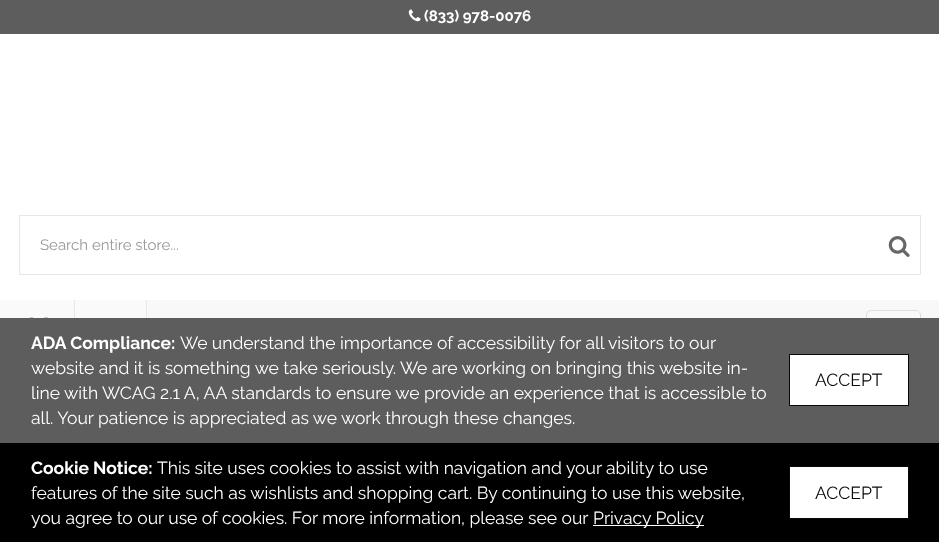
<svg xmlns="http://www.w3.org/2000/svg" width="939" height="542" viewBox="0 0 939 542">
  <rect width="100%" height="100%" fill="#ffffff"/>
  <rect x="0" y="0" width="939" height="34" fill="#5d5d5d"/>
  <image x="408" y="9" width="13" height="13" href="img1.png"/>
  <text x="424" y="21" font-family="Raleway" font-size="15" font-weight="bold" fill="#ffffff">(833) 978-0076</text>
  <rect x="19.5" y="215.5" width="901" height="59" fill="none" stroke="#e7e7e7"/>
  <text x="40" y="250" font-family="Raleway" font-size="15" fill="#999999">Search entire store...</text>
  <image x="888" y="236" width="22" height="21" href="img2.png"/>
  <rect x="148" y="300" width="791" height="18" fill="#f8f8f8"/>
  <rect x="0" y="300" width="148" height="18" fill="#fafafa"/>
  <rect x="74" y="300" width="1" height="18" fill="#e7e7e7"/>
  <image x="29" y="317" width="19" height="1" href="img3.png"/>
  <rect x="146" y="300" width="1" height="18" fill="#e7e7e7"/>
  <rect x="866.5" y="310.5" width="54" height="42" rx="4.5" fill="none" stroke="#dddddd"/>
  <rect x="0" y="318" width="939" height="125" fill="#5d5d5d"/>
  <text x="31" y="349" font-family="Raleway" font-size="17.5" font-weight="bold" fill="#ffffff">ADA Compliance:</text>
  <text x="180" y="349" font-family="Raleway" font-size="17.5" fill="#ffffff">We understand the importance of accessibility for all visitors to our</text>
  <text x="31" y="374" font-family="Raleway" font-size="17.5" fill="#ffffff">website and it is something we take seriously. We are working on bringing this website in-</text>
  <text x="31" y="399" font-family="Raleway" font-size="17.5" fill="#ffffff">line with WCAG 2.1 A, AA standards to ensure we provide an experience that is accessible to</text>
  <text x="31" y="424" font-family="Raleway" font-size="17.5" fill="#ffffff">all. Your patience is appreciated as we work through these changes.</text>
  <rect x="789.5" y="354.5" width="119" height="51" fill="#ffffff" stroke="#080808"/>
  <text x="815" y="386" font-family="Raleway" font-size="17.5" fill="#080808">ACCEPT</text>
  <rect x="0" y="443" width="939" height="99" fill="#000000"/>
  <text x="31" y="474" font-family="Raleway" font-size="17.5" font-weight="bold" fill="#ffffff">Cookie Notice:</text>
  <text x="157" y="474" font-family="Raleway" font-size="17.5" fill="#ffffff">This site uses cookies to assist with navigation and your ability to use</text>
  <text x="31" y="499" font-family="Raleway" font-size="17.5" fill="#ffffff">features of the site such as wishlists and shopping cart. By continuing to use this website,</text>
  <text x="31" y="524" font-family="Raleway" font-size="17.5" fill="#ffffff">you agree to our use of cookies. For more information, please see our</text>
  <rect x="593" y="525" width="111" height="1" fill="#ffffff"/>
  <text x="593" y="524" font-family="Raleway" font-size="17.5" fill="#ffffff">Privacy Policy</text>
  <rect x="789.5" y="466.5" width="119" height="52" fill="#ffffff" stroke="#080808"/>
  <text x="815" y="499" font-family="Raleway" font-size="17.5" fill="#080808">ACCEPT</text>
</svg>
